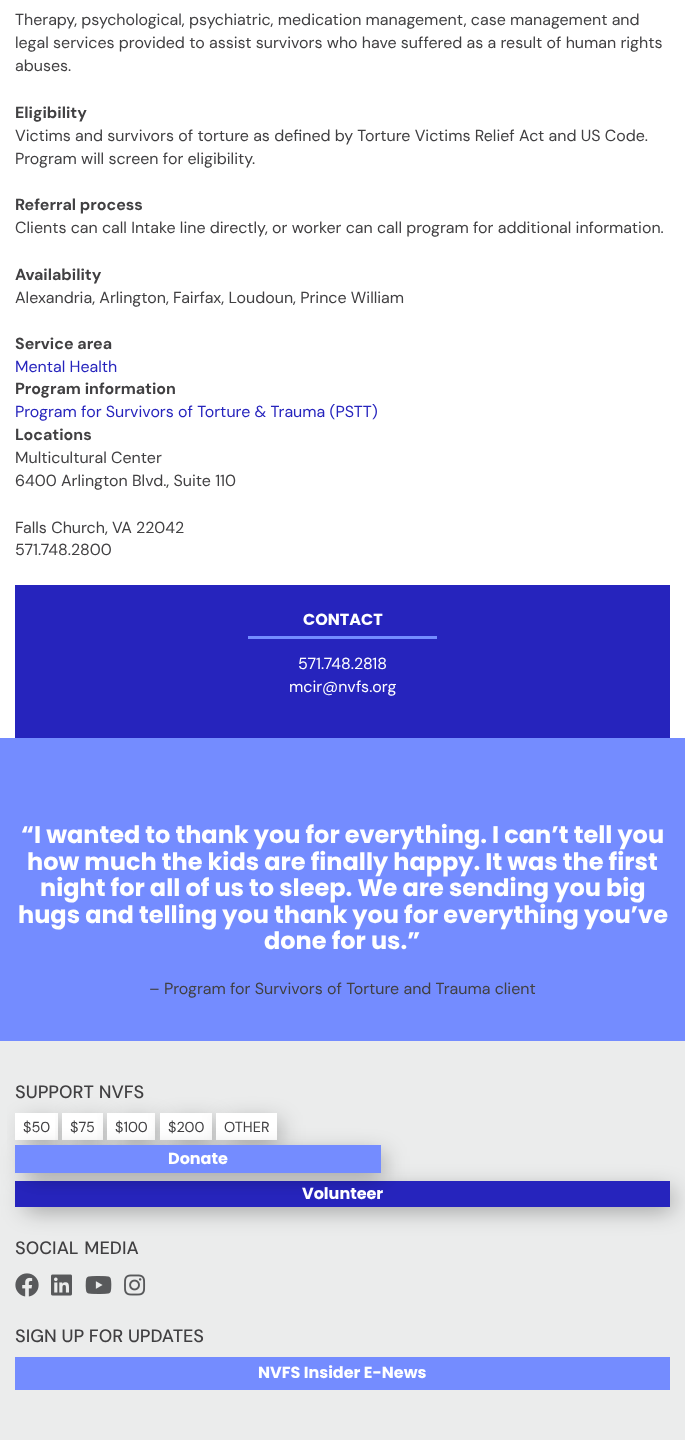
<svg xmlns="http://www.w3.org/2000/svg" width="685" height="1440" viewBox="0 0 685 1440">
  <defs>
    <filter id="blur1" x="-50%" y="-200%" width="200%" height="500%"><feGaussianBlur stdDeviation="11.5"/></filter>
  </defs>
  <rect width="100%" height="100%" fill="#ffffff"/>
  <text x="15" y="25" font-family="DM Sans" font-size="16" fill="#414042">Therapy, psychological, psychiatric, medication management, case management and</text>
  <text x="15" y="48" font-family="DM Sans" font-size="16" fill="#414042">legal services provided to assist survivors who have suffered as a result of human rights</text>
  <text x="15" y="71" font-family="DM Sans" font-size="16" fill="#414042">abuses.</text>
  <text x="15" y="118" font-family="DM Sans" font-size="16" font-weight="bold" fill="#414042">Eligibility</text>
  <text x="15" y="141" font-family="DM Sans" font-size="16" fill="#414042">Victims and survivors of torture as defined by Torture Victims Relief Act and US Code.</text>
  <text x="15" y="164" font-family="DM Sans" font-size="16" fill="#414042">Program will screen for eligibility.</text>
  <text x="15" y="210" font-family="DM Sans" font-size="16" font-weight="bold" fill="#414042">Referral process</text>
  <text x="15" y="233" font-family="DM Sans" font-size="16" fill="#414042">Clients can call Intake line directly, or worker can call program for additional information.</text>
  <text x="15" y="280" font-family="DM Sans" font-size="16" font-weight="bold" fill="#414042">Availability</text>
  <text x="15" y="303" font-family="DM Sans" font-size="16" fill="#414042">Alexandria, Arlington, Fairfax, Loudoun, Prince William</text>
  <text x="15" y="349" font-family="DM Sans" font-size="16" font-weight="bold" fill="#414042">Service area</text>
  <text x="15" y="372" font-family="DM Sans" font-size="16" fill="#2624bd">Mental Health</text>
  <text x="15" y="394" font-family="DM Sans" font-size="16" font-weight="bold" fill="#414042">Program information</text>
  <text x="15" y="417" font-family="DM Sans" font-size="16" fill="#2624bd">Program for Survivors of Torture &amp; Trauma (PSTT)</text>
  <text x="15" y="440" font-family="DM Sans" font-size="16" font-weight="bold" fill="#414042">Locations</text>
  <text x="15" y="463" font-family="DM Sans" font-size="16" fill="#414042">Multicultural Center</text>
  <text x="15" y="486" font-family="DM Sans" font-size="16" fill="#414042">6400 Arlington Blvd., Suite 110</text>
  <text x="15" y="533" font-family="DM Sans" font-size="16" fill="#414042">Falls Church, VA 22042</text>
  <text x="15" y="555" font-family="DM Sans" font-size="16" fill="#414042">571.748.2800</text>
  <rect x="15" y="585" width="655" height="153" fill="#2624bd"/>
  <text x="303" y="625" font-family="Poppins" font-size="16" font-weight="bold" fill="#ffffff">CONTACT</text>
  <rect x="248" y="636" width="189" height="3" fill="#748cff"/>
  <text x="298" y="669" font-family="DM Sans" font-size="16" fill="#ffffff">571.748.2818</text>
  <text x="289" y="692" font-family="DM Sans" font-size="16" fill="#ffffff">mcir@nvfs.org</text>
  <rect x="0" y="738" width="685" height="303" fill="#748cff"/>
  <text x="21" y="843" font-family="Poppins" font-size="24" font-weight="bold" fill="#ffffff">“I wanted to thank you for everything. I can’t tell you</text>
  <text x="27" y="870" font-family="Poppins" font-size="24" font-weight="bold" fill="#ffffff">how much the kids are finally happy. It was the first</text>
  <text x="40" y="896" font-family="Poppins" font-size="24" font-weight="bold" fill="#ffffff">night for all of us to sleep. We are sending you big</text>
  <text x="18" y="923" font-family="Poppins" font-size="24" font-weight="bold" fill="#ffffff">hugs and telling you thank you for everything you’ve</text>
  <text x="264" y="949" font-family="Poppins" font-size="24" font-weight="bold" fill="#ffffff">done for us.”</text>
  <text x="149" y="994" font-family="DM Sans" font-size="16" fill="#414042">– Program for Survivors of Torture and Trauma client</text>
  <rect x="0" y="1041" width="685" height="399" fill="#ebecec"/>
  <text x="15" y="1098" font-family="DM Sans" font-size="18" font-weight="500" fill="#414042">SUPPORT NVFS</text>
  <rect x="25" y="1123" width="35" height="19" fill="#000000" fill-opacity="0.4" filter="url(#blur1)"/>
  <rect x="15" y="1113" width="43" height="27" fill="#ffffff"/>
  <text x="23" y="1132" font-family="'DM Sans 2'" font-size="14.5" fill="#414042">$50</text>
  <rect x="72" y="1123" width="33" height="19" fill="#000000" fill-opacity="0.4" filter="url(#blur1)"/>
  <rect x="62" y="1113" width="41" height="27" fill="#ffffff"/>
  <text x="70" y="1132" font-family="'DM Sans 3'" font-size="14.5" fill="#414042">$75</text>
  <rect x="117" y="1123" width="40" height="19" fill="#000000" fill-opacity="0.4" filter="url(#blur1)"/>
  <rect x="107" y="1113" width="48" height="27" fill="#ffffff"/>
  <text x="115" y="1132" font-family="'DM Sans 2'" font-size="14.5" fill="#414042">$100</text>
  <rect x="170" y="1123" width="44" height="19" fill="#000000" fill-opacity="0.4" filter="url(#blur1)"/>
  <rect x="160" y="1113" width="52" height="27" fill="#ffffff"/>
  <text x="168" y="1132" font-family="'DM Sans 2'" font-size="14.5" fill="#414042">$200</text>
  <rect x="226" y="1123" width="53" height="19" fill="#000000" fill-opacity="0.4" filter="url(#blur1)"/>
  <rect x="216" y="1113" width="61" height="27" fill="#ffffff"/>
  <text x="224" y="1132" font-family="'DM Sans 2'" font-size="14.5" fill="#414042">OTHER</text>
  <rect x="25" y="1191" width="647" height="18" fill="#000000" fill-opacity="0.4" filter="url(#blur1)"/>
  <rect x="15" y="1181" width="655" height="26" fill="#2624bd"/>
  <rect x="25" y="1155" width="358" height="20" fill="#000000" fill-opacity="0.4" filter="url(#blur1)"/>
  <rect x="15" y="1145" width="366" height="28" fill="#748cff"/>
  <text x="168" y="1164" font-family="Poppins" font-size="16" font-weight="bold" fill="#ffffff">Donate</text>
  <text x="302" y="1199" font-family="Poppins" font-size="16" font-weight="bold" fill="#ffffff">Volunteer</text>
  <text x="15" y="1254" word-spacing="1" font-family="DM Sans" font-size="18" font-weight="500" fill="#414042">SOCIAL MEDIA</text>
  <image x="15" y="1273" width="24" height="24" href="img1.png"/>
  <image x="51" y="1274" width="21" height="22" href="img2.png"/>
  <image x="85" y="1276" width="27" height="18" href="img3.png"/>
  <image x="124" y="1274" width="22" height="22" href="img4.png"/>
  <text x="15" y="1342" font-family="DM Sans" font-size="18" font-weight="500" fill="#414042">SIGN UP FOR UPDATES</text>
  <rect x="15" y="1357" width="655" height="33" fill="#748cff"/>
  <text x="258" y="1378" font-family="Poppins" font-size="16" font-weight="bold" fill="#ffffff">NVFS Insider E-News</text>
</svg>
